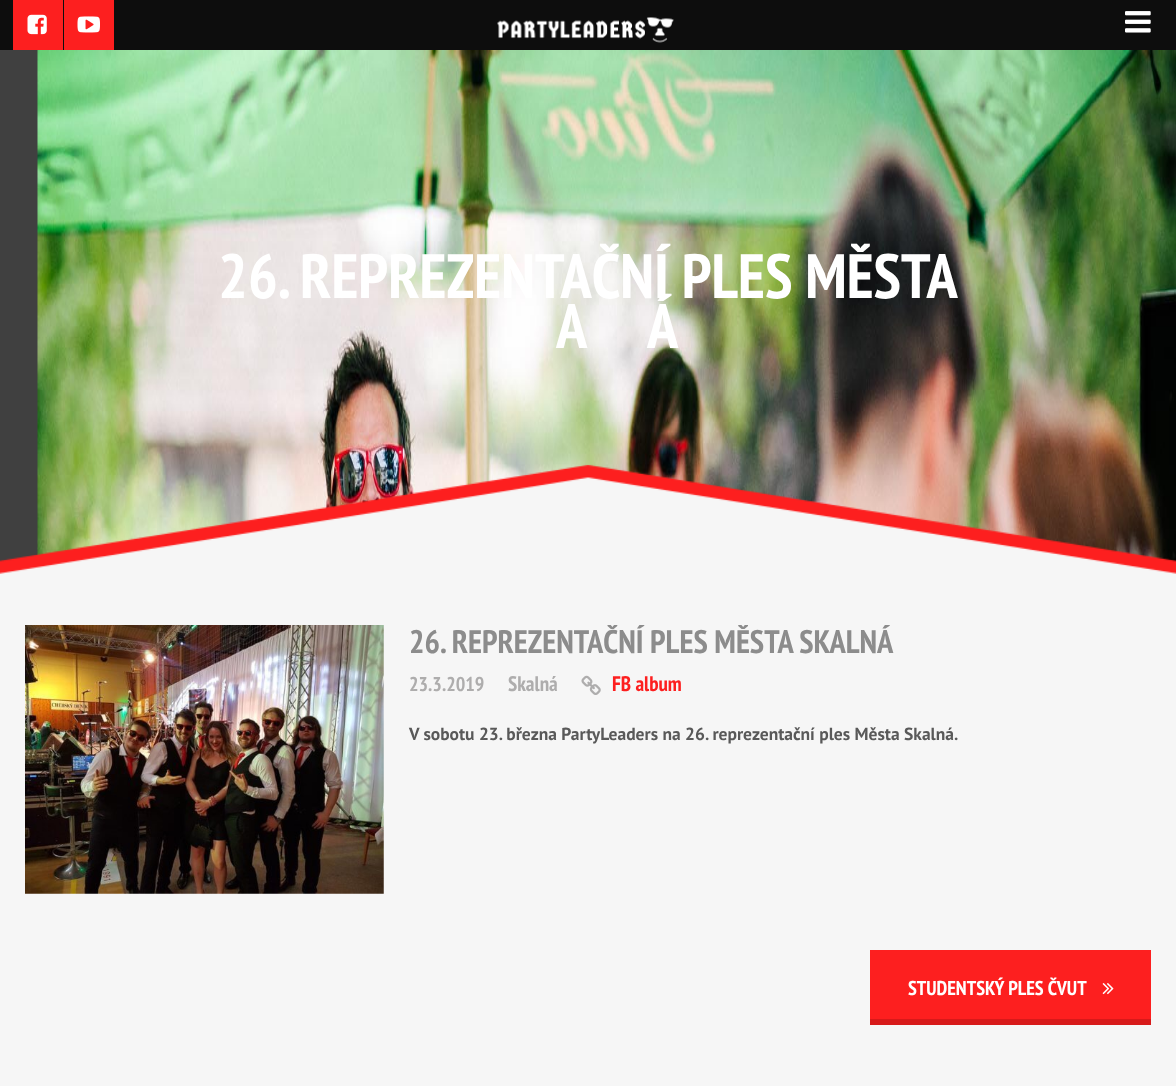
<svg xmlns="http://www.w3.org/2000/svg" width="1176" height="1086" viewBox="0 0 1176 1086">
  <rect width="100%" height="100%" fill="#f6f6f6"/>
  <rect x="0" y="50" width="38" height="512" fill="#404040"/>
  <rect x="0" y="0" width="1176" height="50" fill="#0d0d0d"/>
  <rect x="13" y="0" width="50" height="50" fill="#fd1f1f"/>
  <image x="27" y="14" width="20" height="21" href="img1.png"/>
  <rect x="64" y="0" width="50" height="50" fill="#fd1f1f"/>
  <image x="77" y="16" width="23" height="17" href="img2.png"/>
  <image x="497" y="17" width="177" height="26" href="img3.png"/>
  <image x="1125" y="11" width="26" height="22" href="img4.png"/>
  <image x="37" y="50" width="1139" height="512" href="img5.png"/>
  <text x="218" y="298" font-family="PT Sans Narrow" font-size="62.5" font-weight="bold" fill="#ffffff">26. REPREZENTAČNÍ PLES MĚSTA</text>
  <text x="556" y="348" font-family="PT Sans Narrow" font-size="62.5" font-weight="bold" fill="#ffffff">A</text>
  <text x="647" y="348" font-family="PT Sans Narrow" font-size="62.5" font-weight="bold" fill="#ffffff">Á</text>
  <text x="409" y="653" font-family="PT Sans Narrow" font-size="32.5" font-weight="bold" fill="#8c8c8c">26. REPREZENTAČNÍ PLES MĚSTA SKALNÁ</text>
  <image x="0" y="464" width="1176" height="161" href="img6.png"/>
  <rect x="25" y="625" width="359" height="269" fill="#ffffff"/>
  <image x="25" y="625" width="359" height="269" href="img7.png"/>
  <text x="409" y="691" font-family="PT Sans Narrow" font-size="20" font-weight="bold" fill="#aeadad">23.3.2019</text>
  <text x="508" y="691" font-family="PT Sans Narrow" font-size="21" font-weight="bold" fill="#aeadad">Skalná</text>
  <image x="581" y="675" width="20" height="20" href="img8.png"/>
  <text x="612" y="691" font-family="PT Sans Narrow" font-size="21" font-weight="bold" fill="#fd1f1f">FB album</text>
  <text x="409" y="740" font-family="PT Sans" font-size="17.5" font-weight="bold" fill="#595959">V sobotu 23. března PartyLeaders na 26. reprezentační ples Města Skalná.</text>
  <rect x="870" y="950" width="281" height="69" fill="#fd1f1f"/>
  <rect x="870" y="1019" width="281" height="6" fill="#d71a1a"/>
  <text x="908" y="995" font-family="PT Sans Narrow" font-size="20" font-weight="bold" fill="#ffffff">STUDENTSKÝ PLES ČVUT</text>
  <image x="1102" y="983" width="12" height="12" href="img9.png"/>
</svg>
